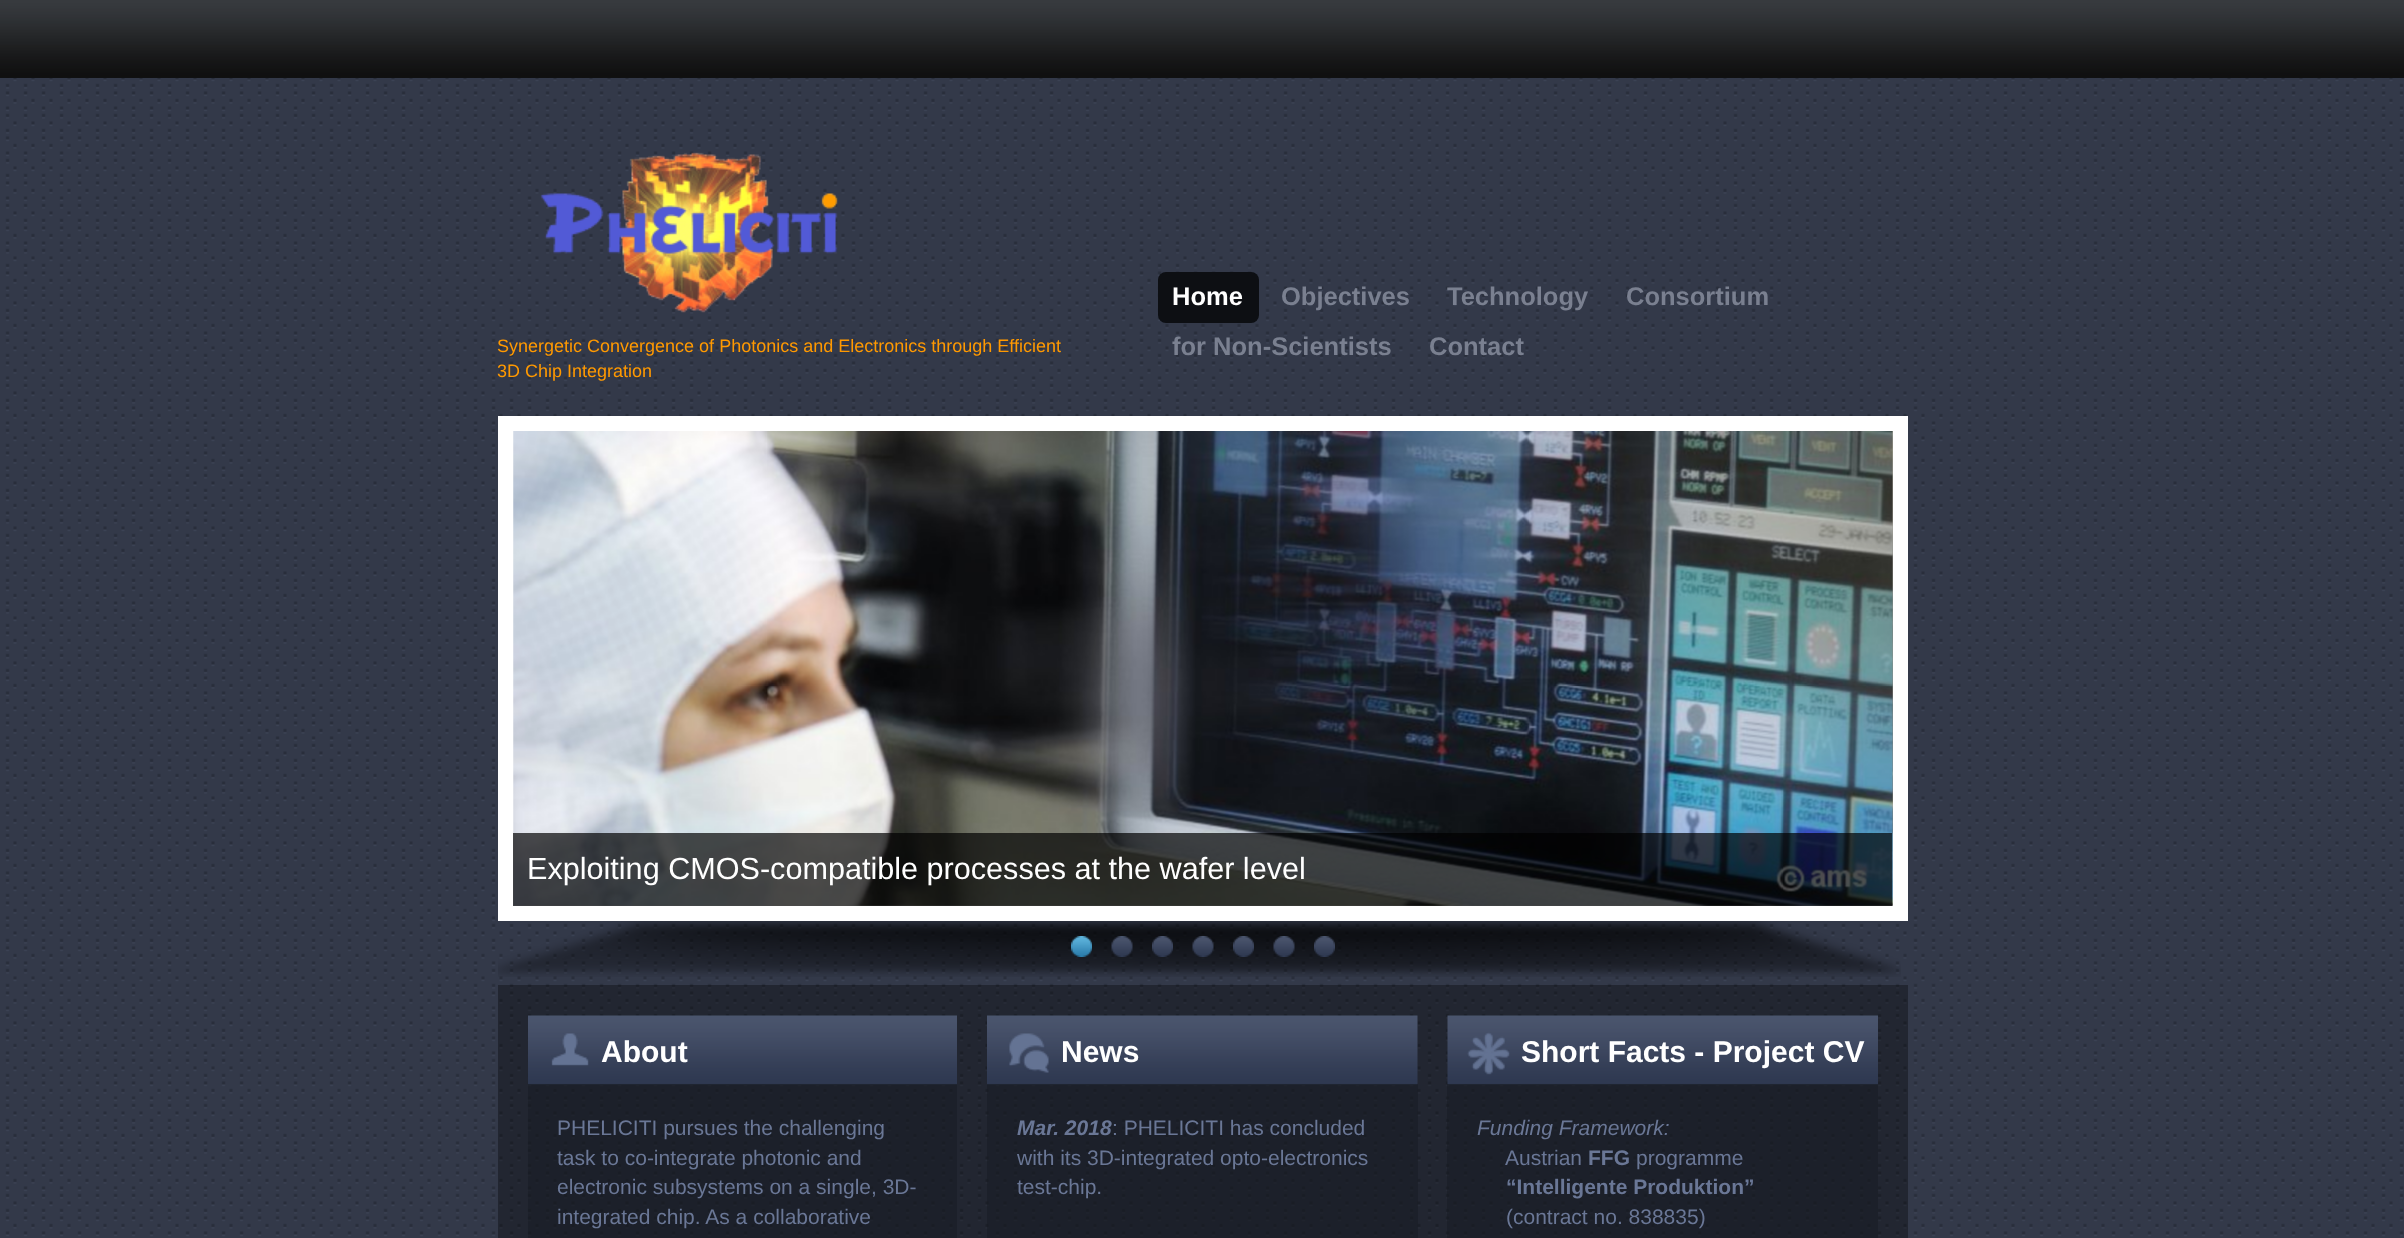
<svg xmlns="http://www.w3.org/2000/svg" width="2404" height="1238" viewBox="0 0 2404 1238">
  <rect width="100%" height="100%" fill="#ffffff"/>
  <image x="0" y="78" width="2404" height="1160" href="img1.png"/>
  <image x="0" y="0" width="2404" height="78" href="img2.png"/>
  <image x="540" y="152" width="298" height="161" href="img3.png"/>
  <text x="497" y="352" font-family="Liberation Sans" font-size="18" fill="#ff9900">Synergetic Convergence of Photonics and Electronics through Efficient</text>
  <text x="497" y="377" font-family="Liberation Sans" font-size="18" fill="#ff9900">3D Chip Integration</text>
  <rect x="1158" y="272" width="101" height="51" rx="8" fill="#0d0f13"/>
  <text x="1172" y="305" font-family="Liberation Sans" font-size="25.5" font-weight="bold" fill="#ffffff">Home</text>
  <text x="1281" y="305" font-family="Liberation Sans" font-size="25.5" font-weight="bold" fill="#7a8090">Objectives</text>
  <text x="1447" y="305" font-family="Liberation Sans" font-size="25.5" font-weight="bold" fill="#7a8090">Technology</text>
  <text x="1626" y="305" font-family="Liberation Sans" font-size="25.5" font-weight="bold" fill="#7a8090">Consortium</text>
  <text x="1172" y="355" font-family="Liberation Sans" font-size="25.5" font-weight="bold" fill="#7a8090">for Non-Scientists</text>
  <text x="1429" y="355" font-family="Liberation Sans" font-size="25.5" font-weight="bold" fill="#7a8090">Contact</text>
  <image x="498" y="921" width="1403" height="56" href="img4.png"/>
  <rect x="505.5" y="423.5" width="1395" height="490" fill="#ffffff" fill-opacity="0.98" stroke="#ffffff" stroke-width="15"/>
  <image x="513" y="431" width="1380" height="475" href="img5.png"/>
  <rect x="513" y="833" width="1379" height="73" fill="#000000" fill-opacity="0.69"/>
  <text x="527" y="879" font-family="Liberation Sans" font-size="30.6" fill="#ffffff">Exploiting CMOS-compatible processes at the wafer level</text>
  <image x="1892" y="431" width="1" height="475" href="img6.png"/>
  <image x="1071" y="936" width="21" height="21" href="img7.png"/>
  <image x="1111" y="936" width="22" height="21" href="img8.png"/>
  <image x="1152" y="936" width="21" height="21" href="img9.png"/>
  <image x="1192" y="936" width="22" height="21" href="img10.png"/>
  <image x="1233" y="936" width="21" height="21" href="img11.png"/>
  <image x="1273" y="936" width="22" height="21" href="img12.png"/>
  <image x="1314" y="936" width="21" height="21" href="img13.png"/>
  <rect x="498" y="985" width="1410" height="253" fill="#000000" fill-opacity="0.32"/>
  <image x="528" y="1015" width="429" height="70" href="img14.png"/>
  <image x="551" y="1033" width="38" height="33" href="img15.png"/>
  <text x="601" y="1062" font-family="Liberation Sans" font-size="30" font-weight="bold" fill="#ffffff">About</text>
  <rect x="528" y="1084" width="429" height="154" fill="#181b23" fill-opacity="0.51"/>
  <text x="557" y="1135" font-family="Liberation Sans" font-size="21" fill="#6a7796">PHELICITI pursues the challenging</text>
  <text x="557" y="1165" font-family="Liberation Sans" font-size="21" fill="#6a7796">task to co-integrate photonic and</text>
  <text x="557" y="1194" font-family="Liberation Sans" font-size="21" fill="#6a7796">electronic subsystems on a single, 3D-</text>
  <text x="557" y="1224" font-family="Liberation Sans" font-size="21" fill="#6a7796">integrated chip. As a collaborative</text>
  <image x="987" y="1015" width="431" height="70" href="img16.png"/>
  <image x="1009" y="1033" width="40" height="40" href="img17.png"/>
  <text x="1061" y="1062" font-family="Liberation Sans" font-size="30" font-weight="bold" fill="#ffffff">News</text>
  <rect x="987" y="1084" width="431" height="154" fill="#181b23" fill-opacity="0.51"/>
  <text x="1017" y="1135" font-family="Liberation Sans" font-size="21" font-weight="bold" font-style="italic" fill="#6a7796">Mar. 2018</text>
  <text x="1112" y="1135" font-family="Liberation Sans" font-size="21" fill="#6a7796">: PHELICITI has concluded</text>
  <text x="1017" y="1165" font-family="Liberation Sans" font-size="21" fill="#6a7796">with its 3D-integrated opto-electronics</text>
  <text x="1017" y="1194" font-family="Liberation Sans" font-size="21" fill="#6a7796">test-chip.</text>
  <image x="1447" y="1015" width="431" height="70" href="img18.png"/>
  <image x="1467" y="1032" width="43" height="43" href="img19.png"/>
  <text x="1521" y="1062" font-family="Liberation Sans" font-size="30" font-weight="bold" fill="#ffffff">Short Facts - Project CV</text>
  <rect x="1447" y="1084" width="431" height="154" fill="#181b23" fill-opacity="0.51"/>
  <text x="1477" y="1135" font-family="Liberation Sans" font-size="21" font-style="italic" fill="#6a7796">Funding Framework:</text>
  <text x="1505" y="1165" font-family="Liberation Sans" font-size="21" fill="#6a7796">Austrian</text>
  <text x="1588" y="1165" font-family="Liberation Sans" font-size="21" font-weight="bold" fill="#6a7796">FFG</text>
  <text x="1636" y="1165" font-family="Liberation Sans" font-size="21" fill="#6a7796">programme</text>
  <text x="1506" y="1194" font-family="Liberation Sans" font-size="21" font-weight="bold" fill="#6a7796">“Intelligente Produktion”</text>
  <text x="1506" y="1224" font-family="Liberation Sans" font-size="21" fill="#6a7796">(contract no. 838835)</text>
</svg>
